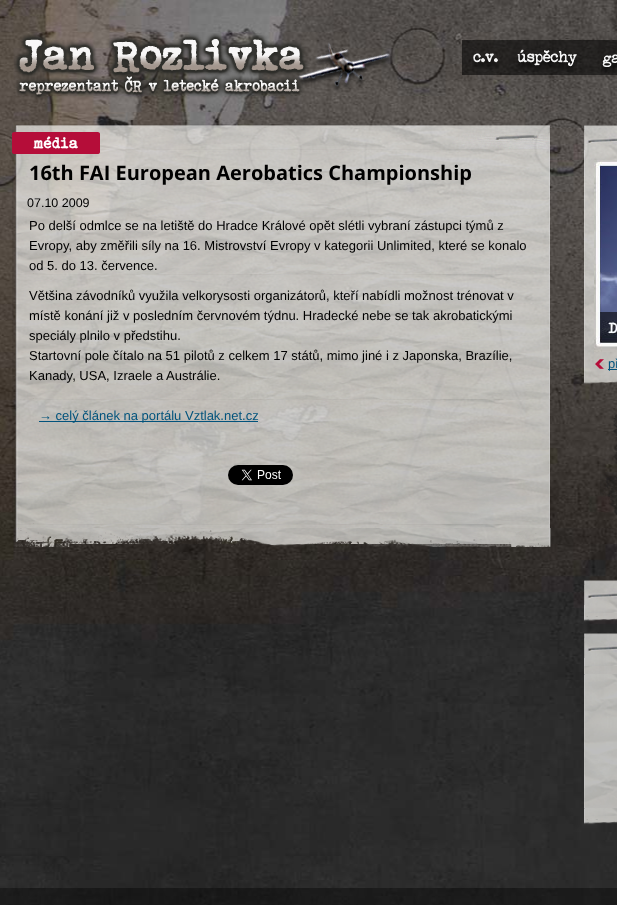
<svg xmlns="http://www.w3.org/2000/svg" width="617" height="905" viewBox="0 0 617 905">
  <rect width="100%" height="100%" fill="#ffffff"/>
  <image x="0" y="0" width="617" height="905" href="img1.png"/>
  <image x="14" y="33" width="377" height="67" href="img2.png"/>
  <rect x="462" y="40" width="155" height="35" fill="#000000" fill-opacity="0.56"/>
  <image x="472" y="53" width="27" height="16" href="img3.png"/>
  <image x="516" y="49" width="61" height="23" href="img4.png"/>
  <image x="601" y="54" width="16" height="20" href="img5.png"/>
  <image x="12" y="124" width="538" height="25" href="img7.png"/>
  <image x="12" y="149" width="538" height="379" href="img8.png"/>
  <image x="12" y="132" width="88" height="22" href="img6.png"/>
  <text x="29" y="180" font-family="Open Sans" font-size="20" font-weight="bold" fill="#000000">16th FAI European Aerobatics Championship</text>
  <text x="27" y="207" font-family="Liberation Sans" font-size="12.5" fill="#000000">07.10 2009</text>
  <text x="29" y="230" font-family="Liberation Sans" font-size="13" fill="#000000">Po delší odmlce se na letiště do Hradce Králové opět slétli vybraní zástupci týmů z</text>
  <text x="29" y="250" font-family="Liberation Sans" font-size="13" fill="#000000">Evropy, aby změřili síly na 16. Mistrovství Evropy v kategorii Unlimited, které se konalo</text>
  <text x="29" y="270" font-family="Liberation Sans" font-size="13" fill="#000000">od 5. do 13. července.</text>
  <text x="29" y="300" font-family="Liberation Sans" font-size="13" fill="#000000">Většina závodníků využila velkorysosti organizátorů, kteří nabídli možnost trénovat v</text>
  <text x="29" y="320" font-family="Liberation Sans" font-size="13" fill="#000000">místě konání již v posledním červnovém týdnu. Hradecké nebe se tak akrobatickými</text>
  <text x="29" y="340" font-family="Liberation Sans" font-size="13" fill="#000000">speciály plnilo v předstihu.</text>
  <text x="29" y="360" font-family="Liberation Sans" font-size="13" fill="#000000">Startovní pole čítalo na 51 pilotů z celkem 17 států, mimo jiné i z Japonska, Brazílie,</text>
  <text x="29" y="380" font-family="Liberation Sans" font-size="13" fill="#000000">Kanady, USA, Izraele a Austrálie.</text>
  <rect x="39" y="421" width="219" height="1" fill="#02537c"/>
  <text x="39" y="420" font-family="Liberation Sans" font-size="13" fill="#02537c">→ celý článek na portálu Vztlak.net.cz</text>
  <image x="228" y="465" width="65" height="20" href="img9.png"/>
  <image x="15" y="528" width="536" height="19" href="img10.png"/>
  <image x="583" y="125" width="34" height="260" href="img11.png"/>
  <image x="594" y="160" width="23" height="202" href="img12.png"/>
  <image x="595" y="359" width="9" height="10" href="img13.png"/>
  <rect x="608" y="369" width="9" height="1" fill="#02537c"/>
  <text x="608" y="368" font-family="Liberation Sans" font-size="13" fill="#02537c">př</text>
  <image x="600" y="414" width="17" height="101" href="img14.png"/>
  <image x="584" y="580" width="33" height="33" href="img15.png"/>
  <image x="584" y="613" width="33" height="9" href="img16.png"/>
  <image x="584" y="633" width="33" height="33" href="img17.png"/>
  <image x="584" y="666" width="33" height="150" href="img18.png"/>
  <image x="584" y="816" width="33" height="9" href="img19.png"/>
  <rect x="0" y="888" width="617" height="17" fill="#000000" fill-opacity="0.36"/>
</svg>
